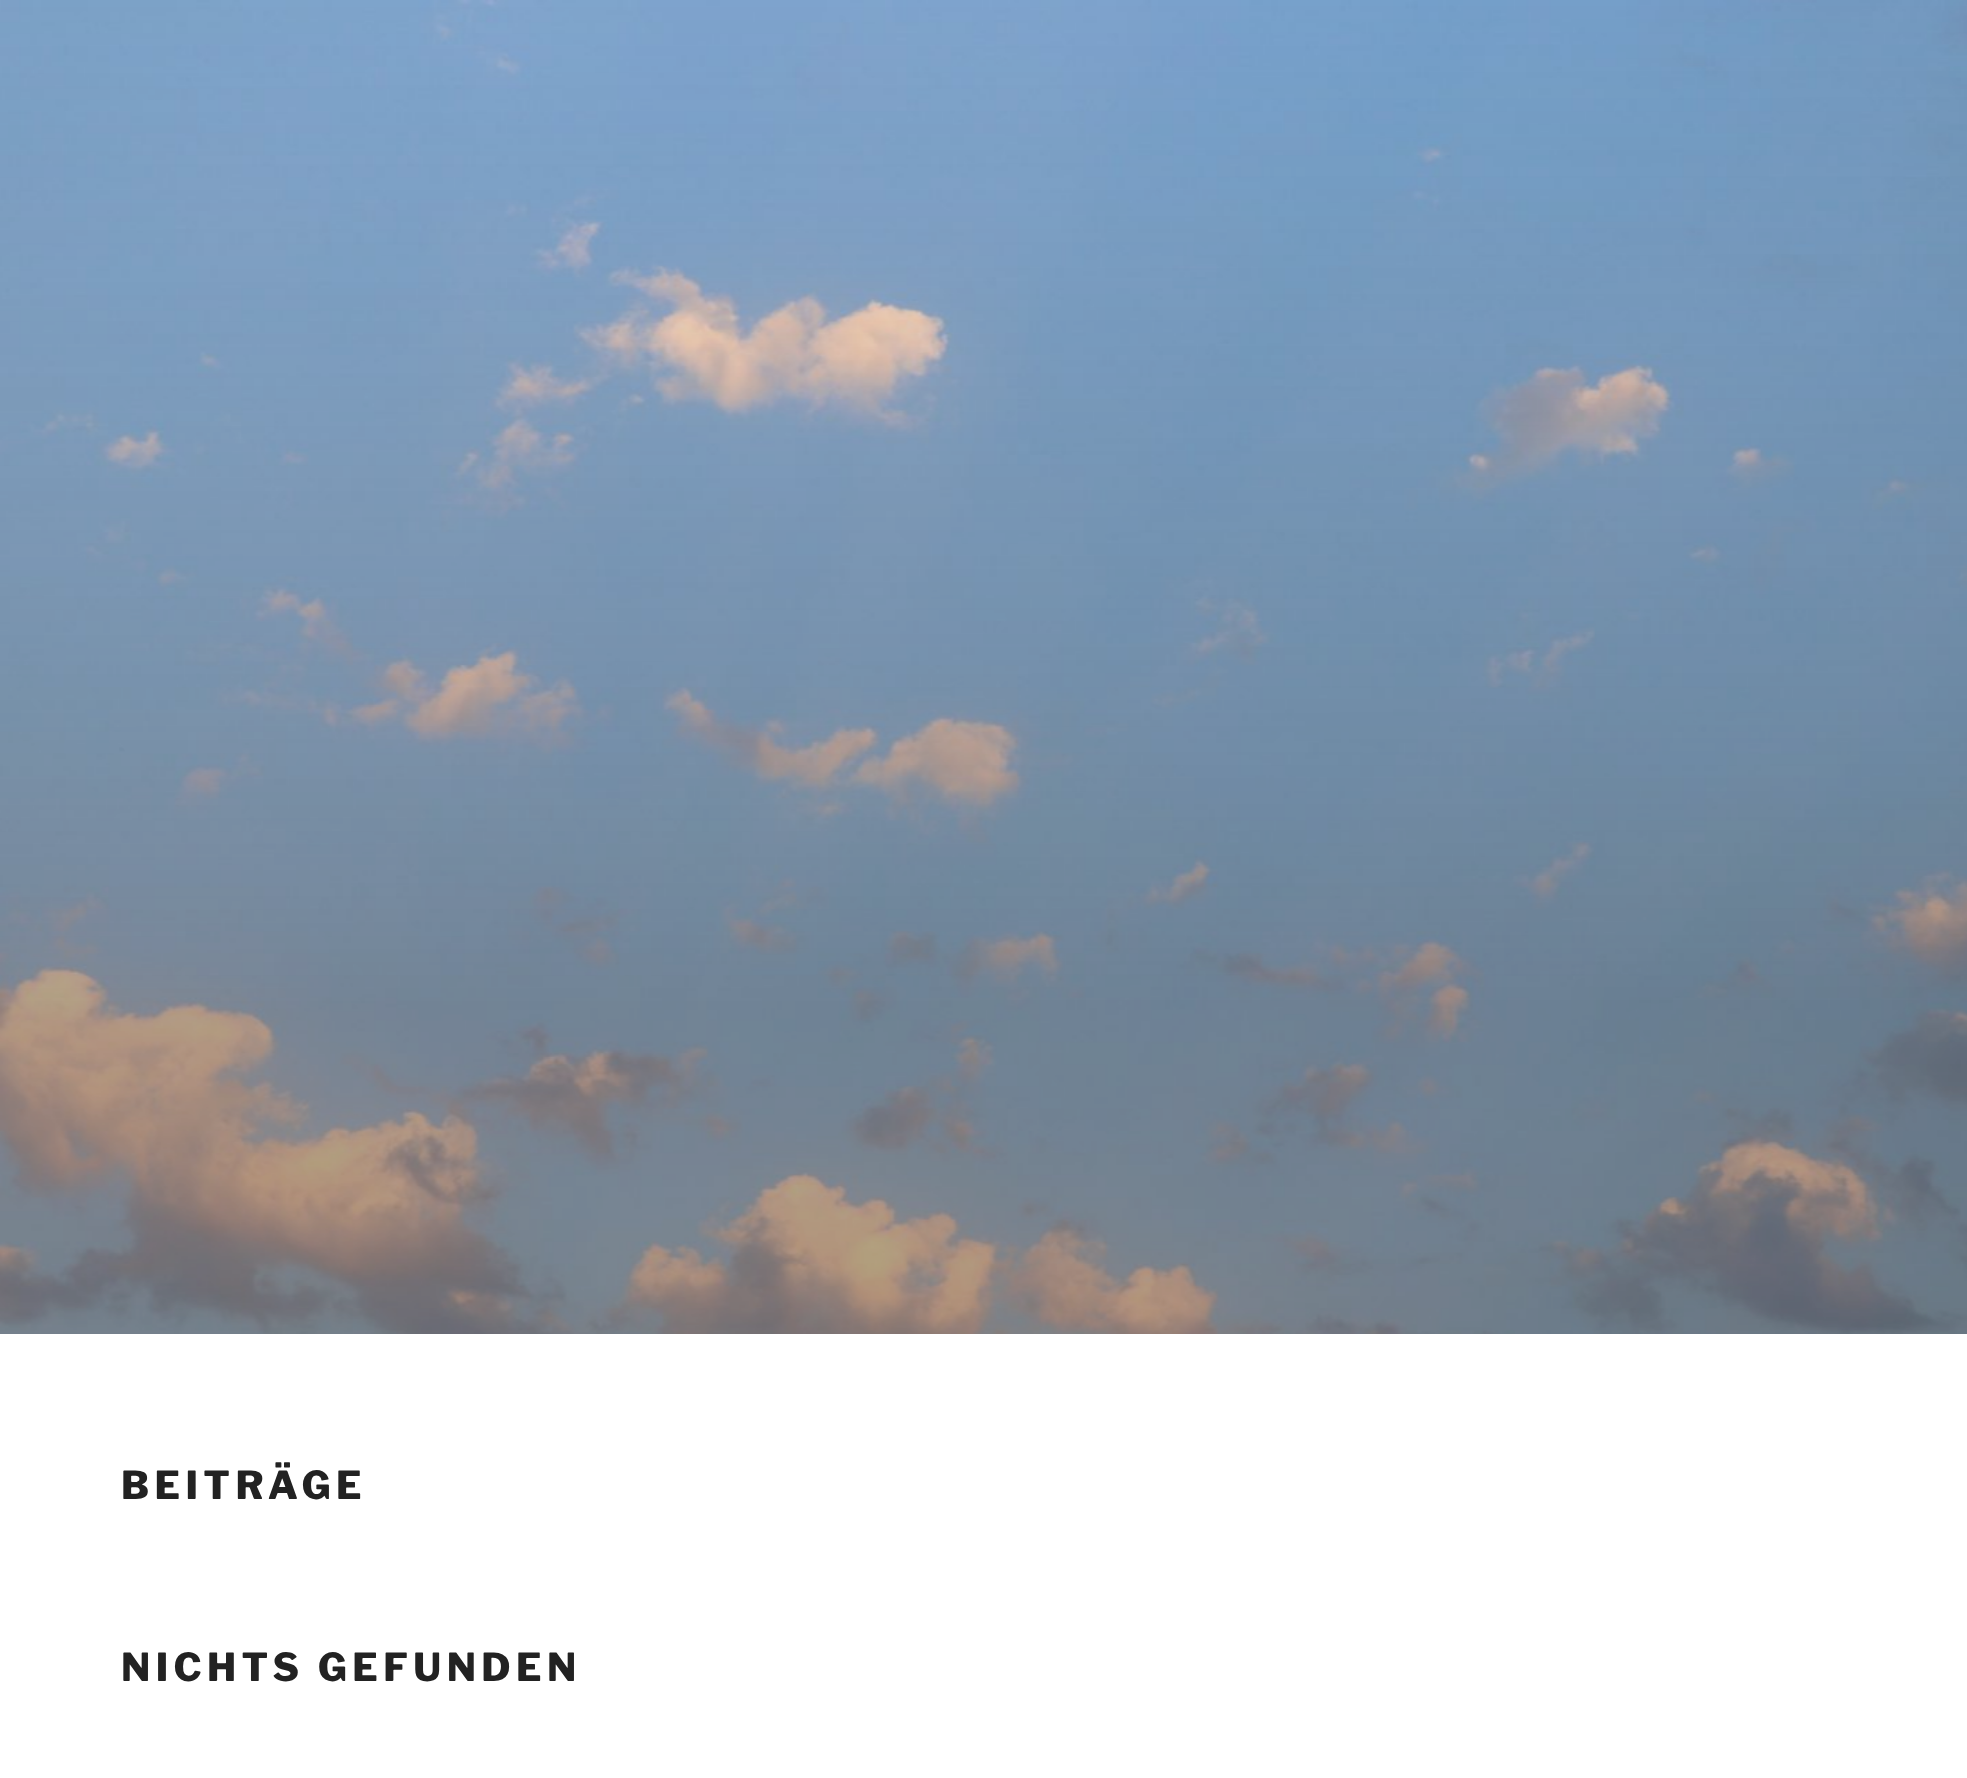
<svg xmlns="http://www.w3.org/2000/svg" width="1967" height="1778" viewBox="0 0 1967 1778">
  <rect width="100%" height="100%" fill="#ffffff"/>
  <image x="0" y="0" width="1967" height="1334" href="img1.png"/>
  <text x="121" y="1499" font-family="Libre Franklin" font-size="38.5" font-weight="800" letter-spacing="5.4" fill="#222222">BEITRÄGE</text>
  <text x="121" y="1681" font-family="Libre Franklin" font-size="38.5" font-weight="800" letter-spacing="5.4" fill="#222222">NICHTS GEFUNDEN</text>
</svg>
